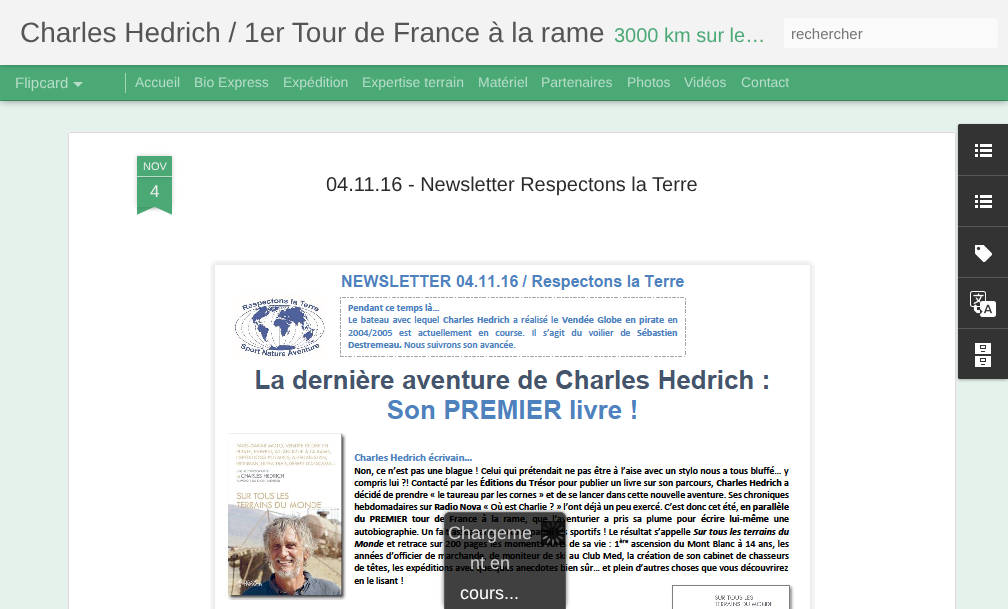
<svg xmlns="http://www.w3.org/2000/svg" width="1008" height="609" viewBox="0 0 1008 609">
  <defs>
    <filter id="blur1" x="-50%" y="-200%" width="200%" height="500%"><feGaussianBlur stdDeviation="4"/></filter>
    <filter id="blur2" x="-50%" y="-200%" width="200%" height="500%"><feGaussianBlur stdDeviation="2.5"/></filter>
    <clipPath id="clip1"><rect x="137" y="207" width="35" height="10"/></clipPath>
    <clipPath id="clip2"><rect x="137" y="207" width="35" height="10"/></clipPath>
    <filter id="blur3" x="-50%" y="-200%" width="200%" height="500%"><feGaussianBlur stdDeviation="1.5"/></filter>
    <clipPath id="clip3"><path d="M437 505H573V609H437ZM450 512H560C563.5 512 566 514.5 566 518V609H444V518C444 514.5 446.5 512 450 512Z" clip-rule="evenodd"/></clipPath>
    <filter id="blur4" x="-50%" y="-200%" width="200%" height="500%"><feGaussianBlur stdDeviation="2"/></filter>
  </defs>
  <rect width="100%" height="100%" fill="#4ba976"/>
  <rect x="0" y="101" width="1008" height="508" fill="#e4f2eb"/>
  <rect x="0" y="65" width="1008" height="35" fill="#000000" fill-opacity="0.5" filter="url(#blur1)"/>
  <rect x="0" y="65" width="1008" height="35" fill="#4ba976"/>
  <rect x="125" y="73" width="1" height="20" fill="#a5d4bb"/>
  <rect x="0" y="0" width="1008" height="65" fill="#000000" fill-opacity="0.3" filter="url(#blur2)"/>
  <rect x="0" y="0" width="1008" height="65" fill="#f3f3f3"/>
  <text x="20" y="42" font-family="Liberation Sans" font-size="28" fill="#555555">Charles Hedrich / 1er Tour de France à la rame</text>
  <text x="614" y="42" font-family="Liberation Sans" font-size="20" fill="#4ba976">3000 km sur le…</text>
  <rect x="784" y="18" width="214" height="30" rx="3" fill="#fafafa"/>
  <text x="791" y="39" font-family="Liberation Sans" font-size="15" fill="#757575">rechercher</text>
  <text x="15" y="88" font-family="Liberation Sans" font-size="15" fill="#b7ddc8">Flipcard</text>
  <path d="M73 82H83L78 87Z" fill="#b7ddc8"/>
  <text x="135" y="87" font-family="Liberation Sans" font-size="14" fill="#b7ddc8">Accueil</text>
  <text x="194" y="87" font-family="Liberation Sans" font-size="14" fill="#b7ddc8">Bio Express</text>
  <text x="283" y="87" font-family="Liberation Sans" font-size="14" fill="#b7ddc8">Expédition</text>
  <text x="362" y="87" font-family="Liberation Sans" font-size="14" fill="#b7ddc8">Expertise terrain</text>
  <text x="478" y="87" font-family="Liberation Sans" font-size="14" fill="#b7ddc8">Matériel</text>
  <text x="541" y="87" font-family="Liberation Sans" font-size="14" fill="#b7ddc8">Partenaires</text>
  <text x="627" y="87" font-family="Liberation Sans" font-size="14" fill="#b7ddc8">Photos</text>
  <text x="684" y="87" font-family="Liberation Sans" font-size="14" fill="#b7ddc8">Vidéos</text>
  <text x="741" y="87" font-family="Liberation Sans" font-size="14" fill="#b7ddc8">Contact</text>
  <rect x="67" y="131" width="890" height="478" fill="#ffffff"/>
  <image x="67" y="131" width="890" height="478" href="img1.png"/>
  <rect x="137" y="177" width="35" height="30" fill="#000000" fill-opacity="0.2" filter="url(#blur2)"/>
  <rect x="137" y="177" width="35" height="30" fill="#4ba976"/>
  <rect x="137" y="156" width="35" height="21" rx="1" fill="#000000" fill-opacity="0.2" filter="url(#blur2)"/>
  <path d="M138 156H171C171.5 156 172 156.5 172 157V177H137V157C137 156.5 137.5 156 138 156Z" fill="#4ba976"/>
  <rect x="137" y="176" width="35" height="1" fill="#b7ddc8"/>
  <text x="143" y="170" font-family="Liberation Sans" font-size="11" fill="#eeeeee">NOV</text>
  <text x="150" y="197" font-family="Liberation Sans" font-size="17" fill="#eeeeee">4</text>
  <g clip-path="url(#clip1)">
    <rect x="128" y="197" width="50" height="10" fill="#000000" fill-opacity="0.2" filter="url(#blur2)"/>
  </g>
  <g clip-path="url(#clip2)">
    <path d="M128 208L174 187L178 196L132 217Z" fill="#4ba976"/>
  </g>
  <g clip-path="url(#clip1)">
    <rect x="131" y="197" width="50" height="10" fill="#000000" fill-opacity="0.2" filter="url(#blur2)"/>
  </g>
  <g clip-path="url(#clip2)">
    <path d="M135 187L181 208L177 217L131 196Z" fill="#4ba976"/>
  </g>
  <text x="326" y="191" font-family="Liberation Sans" font-size="20" fill="#2a2a2a">04.11.16 - Newsletter Respectons la Terre</text>
  <image x="210" y="260" width="605" height="349" href="img2.png"/>
  <rect x="958" y="125" width="50" height="255" rx="2" fill="#000000" fill-opacity="0.3" filter="url(#blur3)"/>
  <path d="M960 124H1008V379H960C959 379 958 378 958 377V126C958 125 959 124 960 124Z" fill="#333333"/>
  <path d="M960 124H1008V175H958V126C958 125 959 124 960 124Z" fill="#333333"/>
  <image x="975" y="144" width="17" height="13" href="img3.png"/>
  <rect x="958" y="175" width="50" height="1" fill="#585858"/>
  <image x="975" y="195" width="17" height="13" href="img3.png"/>
  <rect x="958" y="226" width="50" height="1" fill="#585858"/>
  <image x="975" y="245" width="17" height="17" href="img4.png"/>
  <rect x="958" y="277" width="50" height="1" fill="#585858"/>
  <image x="970" y="291" width="26" height="26" href="img5.png"/>
  <path d="M958 328H1008V379H960C959 379 958 378 958 377Z" fill="#333333"/>
  <rect x="958" y="328" width="50" height="1" fill="#585858"/>
  <image x="975" y="343" width="16" height="24" href="img6.png"/>
  <g clip-path="url(#clip3)">
    <rect x="444" y="512" width="122" height="97" rx="6" fill="#333333" fill-opacity="0.75" filter="url(#blur4)"/>
  </g>
  <path d="M450 512H560C563.5 512 566 514.5 566 518V609H444V518C444 514.5 446.5 512 450 512Z" fill="#000000" fill-opacity="0.75"/>
  <path d="M450 512H560C563 512 566 515 566 518V609H444V518C444 515 447 512 450 512ZM450 513H560C563 513 565 515 565 518V609H445V518C445 515 447 513 450 513Z" fill="#666666" fill-opacity="0.75" fill-rule="evenodd"/>
  <image x="541" y="521" width="24" height="24" href="img7.png"/>
  <text x="448" y="539" font-family="Liberation Sans" font-size="18" fill="#cccccc">Chargeme</text>
  <text x="470" y="569" font-family="Liberation Sans" font-size="18" fill="#cccccc">nt en</text>
  <text x="460" y="599" font-family="Liberation Sans" font-size="18" fill="#ffffff">cours...</text>
</svg>
